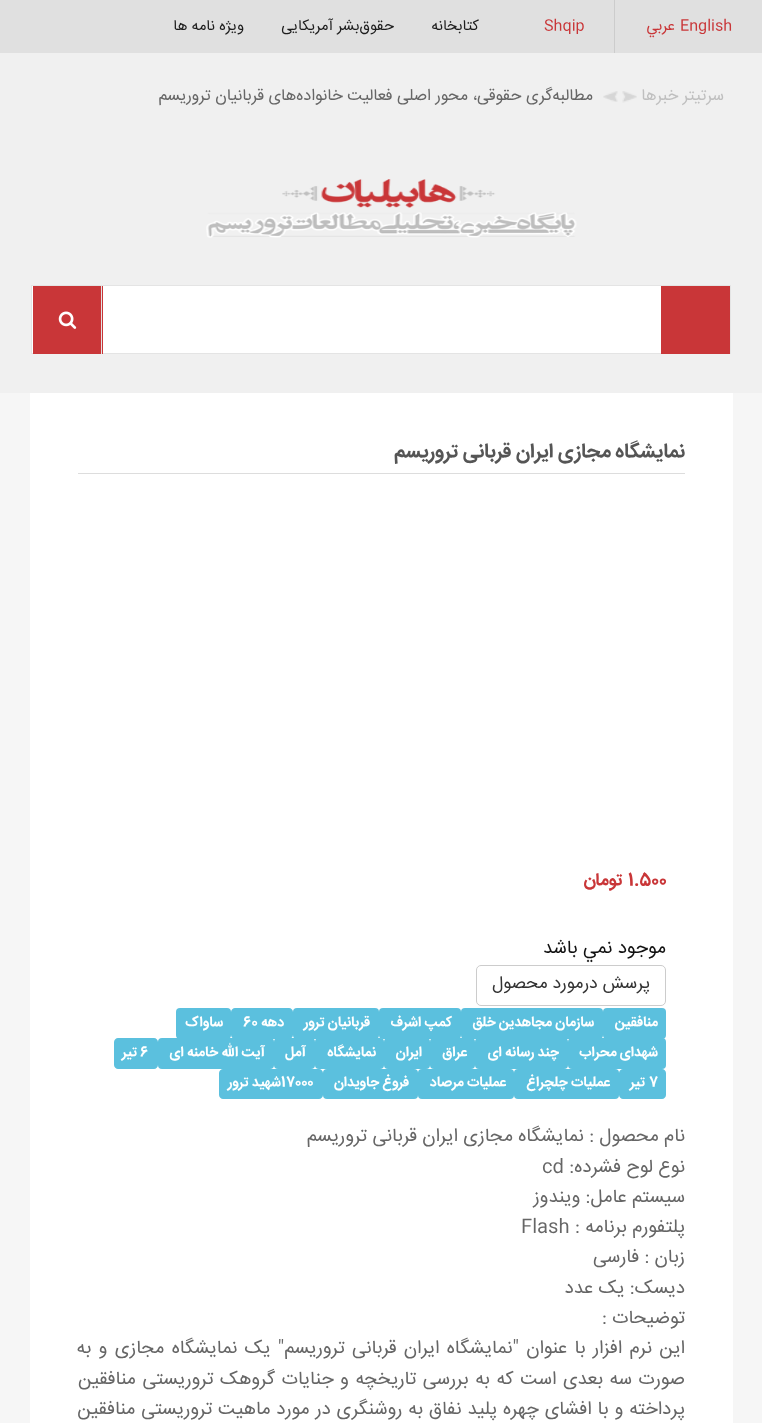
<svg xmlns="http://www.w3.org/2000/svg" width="762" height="1423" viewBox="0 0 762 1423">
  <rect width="100%" height="100%" fill="#f6f6f6"/>
  <rect x="0" y="0" width="762" height="53" fill="#e0e0e0"/>
  <text x="680" y="30" font-family="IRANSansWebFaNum" font-size="15" fill="#c93638">English</text>
  <text x="675" y="30" font-family="IRANSansWebFaNum" font-size="15" direction="rtl" fill="#c93638">عربي</text>
  <rect x="614" y="0" width="1" height="53" fill="#cccccc"/>
  <text x="544" y="30" font-family="IRANSansWebFaNum" font-size="15" fill="#c93638">Shqip</text>
  <text x="479" y="30" font-family="IRANSansWebFaNum" font-size="15" direction="rtl" fill="#1d1d1d">کتابخانه‌</text>
  <text x="394" y="30" font-family="IRANSansWebFaNum" font-size="15" direction="rtl" fill="#1d1d1d">حقوق‌بشر آمریکایی</text>
  <text x="244" y="30" font-family="IRANSansWebFaNum" font-size="15" direction="rtl" fill="#1d1d1d">ویژه نامه ها</text>
  <rect x="0" y="53" width="762" height="340" fill="#f0f0f0"/>
  <text x="724" y="100" font-family="IRANSansWebFaNum" font-size="16.25" direction="rtl" fill="#bfbfbf">سرتیتر خبرها</text>
  <image x="622" y="91" width="15" height="12" href="img1.png"/>
  <image x="603" y="91" width="15" height="11" href="img2.png"/>
  <text x="593" y="100" font-family="IRANSansWebFaNum" font-size="16.25" direction="rtl" fill="#666666">مطالبه‌گری حقوقی، محور اصلی فعالیت خانواده‌های قربانیان تروریسم</text>
  <image x="206" y="179" width="371" height="59" href="img3.png"/>
  <rect x="32" y="286" width="629" height="67" fill="#ffffff"/>
  <rect x="31.5" y="285.5" width="699" height="68" fill="none" stroke="#e4e4e4"/>
  <rect x="661" y="286" width="69" height="68" fill="#c93638"/>
  <rect x="33" y="286" width="70" height="68" fill="#c93638"/>
  <rect x="101" y="286" width="1" height="68" fill="#e4e4e4"/>
  <image x="58" y="311" width="19" height="18" href="img4.png"/>
  <rect x="30" y="393" width="703" height="1030" fill="#ffffff"/>
  <rect x="78" y="473" width="607" height="1" fill="#dddddd"/>
  <text x="685" y="457" font-family="IRANSansWebFaNum" font-size="20" font-weight="bold" direction="rtl" fill="#555555">نمایشگاه مجازی ایران قربانی تروریسم</text>
  <text x="628" y="885" font-family="IRANSansWebFaNum" font-size="17.5" font-weight="bold" fill="#c93638">1.500</text>
  <text x="623" y="885" font-family="IRANSansWebFaNum" font-size="17.5" font-weight="bold" direction="rtl" fill="#c93638">تومان</text>
  <text x="666" y="953" font-family="IRANSansWebFaNum" font-size="18.75" direction="rtl" fill="#111111">موجود نمي باشد</text>
  <rect x="476.5" y="965.5" width="189" height="40" rx="4.5" fill="none" stroke="#cccccc"/>
  <text x="650" y="988" font-family="IRANSansWebFaNum" font-size="17.5" direction="rtl" fill="#333333">پرسش درمورد محصول</text>
  <rect x="603" y="1008" width="63" height="31" rx="4" fill="#5bc0de"/>
  <text x="658" y="1026" font-family="IRANSansWebFaNum" font-size="14" font-weight="bold" direction="rtl" fill="#ffffff">منافقین</text>
  <rect x="461" y="1008" width="142" height="31" rx="4" fill="#5bc0de"/>
  <text x="594" y="1026" font-family="IRANSansWebFaNum" font-size="14" font-weight="bold" direction="rtl" fill="#ffffff">سازمان مجاهدین خلق</text>
  <rect x="379" y="1008" width="82" height="31" rx="4" fill="#5bc0de"/>
  <text x="452" y="1026" font-family="IRANSansWebFaNum" font-size="14" font-weight="bold" direction="rtl" fill="#ffffff">کمپ اشرف</text>
  <rect x="293" y="1008" width="86" height="31" rx="4" fill="#5bc0de"/>
  <text x="370" y="1026" font-family="IRANSansWebFaNum" font-size="14" font-weight="bold" direction="rtl" fill="#ffffff">قربانیان ترور</text>
  <path d="M258 1008H289C291 1008 293 1010 293 1012V1035C293 1037 291 1039 289 1039H258Z" fill="#5bc0de"/>
  <text x="284" y="1026" font-family="IRANSansWebFaNum" font-size="14" font-weight="bold" direction="rtl" fill="#ffffff">دهه</text>
  <rect x="243" y="1008" width="15" height="30" fill="#5bc0de"/>
  <text x="243" y="1026" font-family="IRANSansWebFaNum" font-size="14" font-weight="bold" fill="#ffffff">60</text>
  <path d="M235 1008H243V1039H235C233 1039 231 1037 231 1035V1012C231 1010 233 1008 235 1008Z" fill="#5bc0de"/>
  <rect x="176" y="1008" width="55" height="31" rx="4" fill="#5bc0de"/>
  <text x="223" y="1026" font-family="IRANSansWebFaNum" font-size="14" font-weight="bold" direction="rtl" fill="#ffffff">ساواک</text>
  <rect x="568" y="1038" width="98" height="31" rx="4" fill="#5bc0de"/>
  <text x="658" y="1056" font-family="IRANSansWebFaNum" font-size="14" font-weight="bold" direction="rtl" fill="#ffffff">شهدای محراب</text>
  <rect x="475" y="1038" width="93" height="31" rx="4" fill="#5bc0de"/>
  <text x="559" y="1056" font-family="IRANSansWebFaNum" font-size="14" font-weight="bold" direction="rtl" fill="#ffffff">چند رسانه ای</text>
  <rect x="430" y="1038" width="45" height="31" rx="4" fill="#5bc0de"/>
  <text x="467" y="1056" font-family="IRANSansWebFaNum" font-size="14" font-weight="bold" direction="rtl" fill="#ffffff">عراق</text>
  <rect x="384" y="1038" width="46" height="31" rx="4" fill="#5bc0de"/>
  <text x="422" y="1056" font-family="IRANSansWebFaNum" font-size="14" font-weight="bold" direction="rtl" fill="#ffffff">ایران</text>
  <rect x="315" y="1038" width="69" height="31" rx="4" fill="#5bc0de"/>
  <text x="376" y="1056" font-family="IRANSansWebFaNum" font-size="14" font-weight="bold" direction="rtl" fill="#ffffff">نمایشگاه</text>
  <rect x="274" y="1038" width="41" height="31" rx="4" fill="#5bc0de"/>
  <text x="306" y="1056" font-family="IRANSansWebFaNum" font-size="14" font-weight="bold" direction="rtl" fill="#ffffff">آمل</text>
  <rect x="158" y="1038" width="116" height="31" rx="4" fill="#5bc0de"/>
  <text x="265" y="1056" font-family="IRANSansWebFaNum" font-size="14" font-weight="bold" direction="rtl" fill="#ffffff">آیت الله خامنه ای</text>
  <path d="M140 1038H154C156 1038 158 1040 158 1042V1065C158 1067 156 1069 154 1069H140Z" fill="#5bc0de"/>
  <text x="140" y="1056" font-family="IRANSansWebFaNum" font-size="14" font-weight="bold" fill="#ffffff">6</text>
  <path d="M118 1038H140V1069H118C116 1069 114 1067 114 1065V1042C114 1040 116 1038 118 1038Z" fill="#5bc0de"/>
  <text x="137" y="1056" font-family="IRANSansWebFaNum" font-size="14" font-weight="bold" direction="rtl" fill="#ffffff">تیر</text>
  <path d="M649 1069H662C664 1069 666 1071 666 1073V1095C666 1097 664 1099 662 1099H649Z" fill="#5bc0de"/>
  <text x="649" y="1086" font-family="IRANSansWebFaNum" font-size="14" font-weight="bold" fill="#ffffff">7</text>
  <path d="M623 1069H649V1099H623C621 1099 619 1097 619 1095V1073C619 1071 621 1069 623 1069Z" fill="#5bc0de"/>
  <text x="645" y="1086" font-family="IRANSansWebFaNum" font-size="14" font-weight="bold" direction="rtl" fill="#ffffff">تیر</text>
  <rect x="514" y="1069" width="105" height="30" rx="4" fill="#5bc0de"/>
  <text x="610" y="1086" font-family="IRANSansWebFaNum" font-size="14" font-weight="bold" direction="rtl" fill="#ffffff">عملیات چلچراغ</text>
  <rect x="418" y="1069" width="96" height="30" rx="4" fill="#5bc0de"/>
  <text x="506" y="1086" font-family="IRANSansWebFaNum" font-size="14" font-weight="bold" direction="rtl" fill="#ffffff">عملیات مرصاد</text>
  <rect x="323" y="1069" width="95" height="30" rx="4" fill="#5bc0de"/>
  <text x="409" y="1086" font-family="IRANSansWebFaNum" font-size="14" font-weight="bold" direction="rtl" fill="#ffffff">فروغ جاویدان</text>
  <path d="M281 1069H319C321 1069 323 1071 323 1073V1095C323 1097 321 1099 319 1099H281Z" fill="#5bc0de"/>
  <text x="281" y="1086" font-family="IRANSansWebFaNum" font-size="14" font-weight="bold" fill="#ffffff">17000</text>
  <path d="M223 1069H281V1099H223C221 1099 219 1097 219 1095V1073C219 1071 221 1069 223 1069Z" fill="#5bc0de"/>
  <text x="281" y="1086" font-family="IRANSansWebFaNum" font-size="14" font-weight="bold" direction="rtl" fill="#ffffff">شهید ترور</text>
  <text x="685" y="1141" font-family="IRANSansWebFaNum" font-size="18.75" direction="rtl" fill="#666666">نام محصول : نمایشگاه مجازی ایران قربانی تروریسم</text>
  <text x="685" y="1172" font-family="IRANSansWebFaNum" font-size="18.75" direction="rtl" fill="#666666">نوع لوح فشرده:</text>
  <text x="542" y="1172" font-family="IRANSansWebFaNum" font-size="18.75" fill="#666666">cd</text>
  <text x="685" y="1202" font-family="IRANSansWebFaNum" font-size="18.75" direction="rtl" fill="#666666">سیستم عامل: ویندوز</text>
  <text x="685" y="1232" font-family="IRANSansWebFaNum" font-size="18.75" direction="rtl" fill="#666666">پلتفورم برنامه :</text>
  <text x="521" y="1232" font-family="IRANSansWebFaNum" font-size="18.75" fill="#666666">Flash</text>
  <text x="685" y="1262" font-family="IRANSansWebFaNum" font-size="18.75" direction="rtl" fill="#666666">زبان : فارسی</text>
  <text x="685" y="1293" font-family="IRANSansWebFaNum" font-size="18.75" direction="rtl" fill="#666666">دیسک: یک عدد</text>
  <text x="685" y="1323" font-family="IRANSansWebFaNum" font-size="18.75" direction="rtl" fill="#666666">توضیحات :</text>
  <text x="685" y="1353" word-spacing="2" font-family="IRANSansWebFaNum" font-size="18.75" direction="rtl" fill="#666666">این نرم افزار با عنوان "نمایشگاه ایران قربانی تروریسم" یک نمایشگاه مجازی و به</text>
  <text x="685" y="1384" word-spacing="1.25" font-family="IRANSansWebFaNum" font-size="18.75" direction="rtl" fill="#666666">صورت سه بعدی است که به بررسی تاریخچه و جنایات گروهک تروریستی منافقین</text>
  <text x="685" y="1414" word-spacing="0.6" font-family="IRANSansWebFaNum" font-size="18.75" direction="rtl" fill="#666666">پرداخته و با افشای چهره پلید نفاق به روشنگری در مورد ماهیت تروریستی منافقین</text>
</svg>
